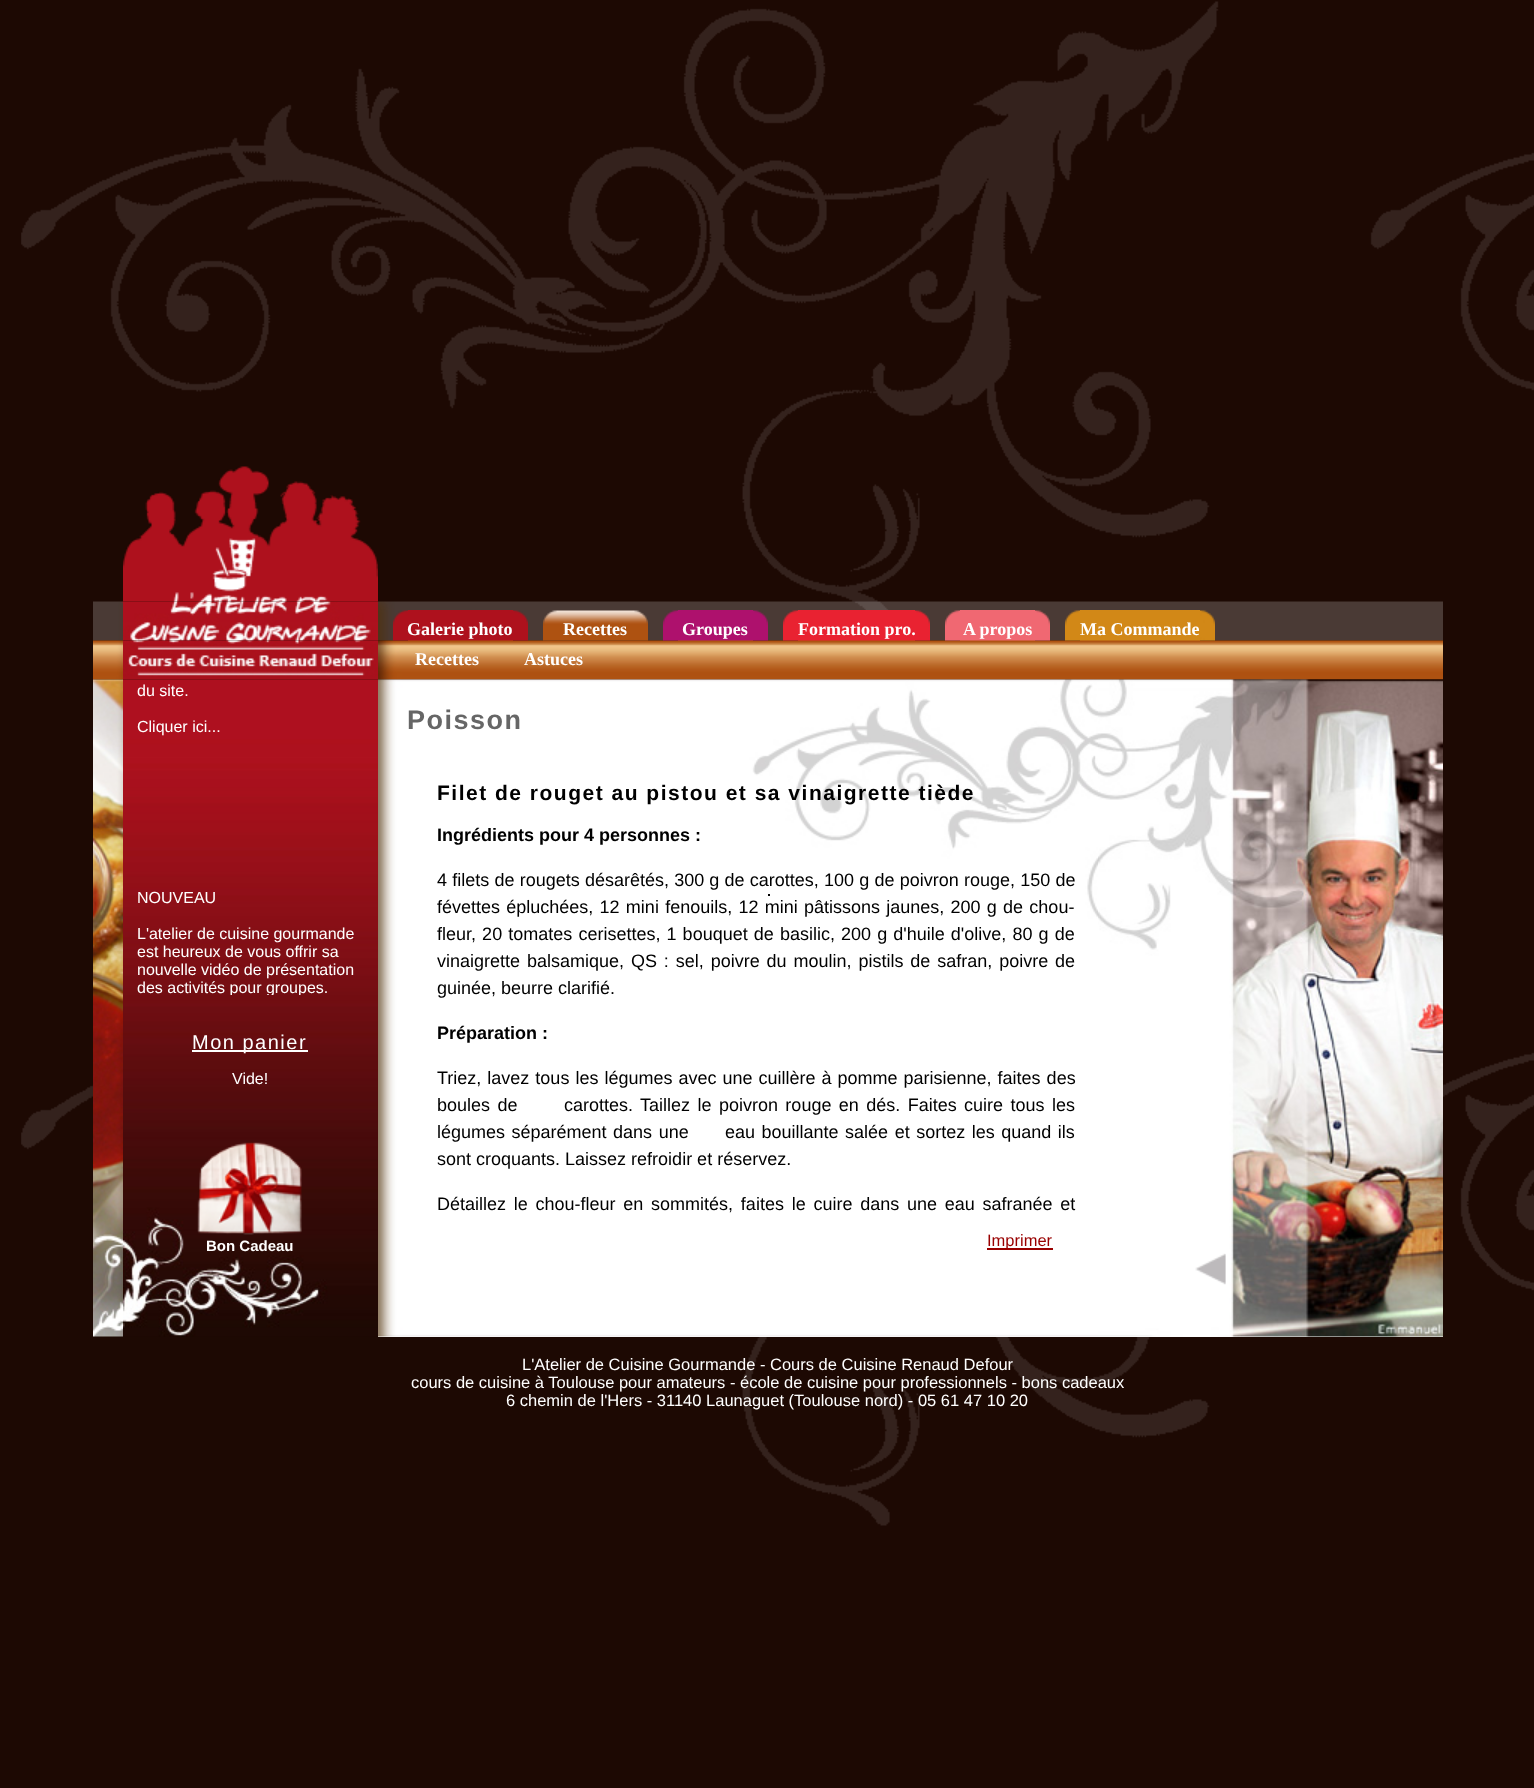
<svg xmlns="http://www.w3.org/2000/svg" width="1534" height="1788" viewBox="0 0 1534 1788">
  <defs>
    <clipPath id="clip1"><rect x="123" y="872" width="255" height="123"/></clipPath>
    <clipPath id="clip2"><rect x="768" y="894" width="2" height="2"/></clipPath>
  </defs>
  <rect width="100%" height="100%" fill="#1d0903"/>
  <image x="21" y="1" width="1513" height="1525" href="img1.png"/>
  <image x="123" y="601" width="255" height="40" href="img4.png"/>
  <image x="123" y="466" width="255" height="136" href="img2.png"/>
  <image x="93" y="601" width="30" height="40" href="img3.png"/>
  <image x="378" y="601" width="1065" height="40" href="img5.png"/>
  <rect x="408" y="610" width="105" height="31" fill="#ae111d"/>
  <image x="558" y="610" width="75" height="31" href="img9.png"/>
  <rect x="678" y="610" width="75" height="31" fill="#ae116d"/>
  <rect x="798" y="610" width="117" height="31" fill="#e92231"/>
  <rect x="960" y="610" width="75" height="31" fill="#f06872"/>
  <rect x="1080" y="610" width="120" height="31" fill="#d28817"/>
  <image x="378" y="640" width="1065" height="40" href="img21.png"/>
  <image x="393" y="610" width="15" height="31" href="img6.png"/>
  <text x="407" y="635" font-family="Liberation Serif" font-size="18" font-weight="bold" fill="#ffffff">Galerie photo</text>
  <image x="513" y="610" width="15" height="31" href="img7.png"/>
  <image x="543" y="610" width="15" height="31" href="img8.png"/>
  <text x="563" y="635" font-family="Liberation Serif" font-size="18" font-weight="bold" fill="#ffffff">Recettes</text>
  <image x="633" y="610" width="15" height="31" href="img10.png"/>
  <image x="663" y="610" width="15" height="31" href="img11.png"/>
  <text x="682" y="635" font-family="Liberation Serif" font-size="18" font-weight="bold" fill="#ffffff">Groupes</text>
  <image x="753" y="610" width="15" height="31" href="img12.png"/>
  <image x="783" y="610" width="15" height="31" href="img13.png"/>
  <text x="798" y="635" font-family="Liberation Serif" font-size="18" font-weight="bold" fill="#ffffff">Formation pro.</text>
  <image x="915" y="610" width="15" height="31" href="img14.png"/>
  <image x="945" y="610" width="15" height="31" href="img15.png"/>
  <text x="963" y="635" font-family="Liberation Serif" font-size="18" font-weight="bold" fill="#ffffff">A propos</text>
  <image x="1035" y="610" width="15" height="31" href="img16.png"/>
  <image x="1065" y="610" width="15" height="31" href="img17.png"/>
  <text x="1080" y="635" font-family="Liberation Serif" font-size="18" font-weight="bold" fill="#ffffff">Ma Commande</text>
  <image x="1200" y="610" width="15" height="31" href="img18.png"/>
  <image x="93" y="640" width="30" height="40" href="img19.png"/>
  <image x="123" y="640" width="255" height="40" href="img20.png"/>
  <text x="415" y="665" font-family="Liberation Serif" font-size="18" font-weight="bold" fill="#ffffff">Recettes</text>
  <text x="524" y="665" font-family="Liberation Serif" font-size="18" font-weight="bold" fill="#ffffff">Astuces</text>
  <image x="93" y="679" width="30" height="658" href="img22.png"/>
  <image x="123" y="679" width="255" height="658" href="img23.png"/>
  <text x="137" y="696" font-family="Liberation Sans" font-size="16" fill="#ffffff">du site.</text>
  <text x="137" y="732" font-family="Liberation Sans" font-size="16" fill="#ffffff">Cliquer ici...</text>
  <text x="137" y="903" font-family="Liberation Sans" font-size="16" fill="#ffffff">NOUVEAU</text>
  <text x="137" y="939" font-family="Liberation Sans" font-size="16" fill="#ffffff">L'atelier de cuisine gourmande</text>
  <text x="137" y="957" font-family="Liberation Sans" font-size="16" fill="#ffffff">est heureux de vous offrir sa</text>
  <text x="137" y="975" font-family="Liberation Sans" font-size="16" fill="#ffffff">nouvelle vidéo de présentation</text>
  <g clip-path="url(#clip1)">
    <text x="137" y="993" font-family="Liberation Sans" font-size="16" fill="#ffffff">des activités pour groupes.</text>
  </g>
  <rect x="192" y="1050" width="116" height="2" fill="#ffffff"/>
  <text x="192" y="1049" font-family="Liberation Sans" font-size="20" letter-spacing="1.5" fill="#ffffff">Mon panier</text>
  <text x="232" y="1084" font-family="Liberation Sans" font-size="16" fill="#ffffff">Vide!</text>
  <image x="197" y="1142" width="105" height="93" href="img24.png"/>
  <text x="206" y="1251" font-family="Liberation Sans" font-size="15" font-weight="bold" fill="#ffffff">Bon Cadeau</text>
  <rect x="378" y="1336" width="1065" height="1" fill="#ffffff"/>
  <image x="378" y="679" width="720" height="658" href="img25.png"/>
  <text x="407" y="729" font-family="Liberation Sans" font-size="27" font-weight="bold" letter-spacing="1.5" fill="#666666">Poisson</text>
  <text x="437" y="800" font-family="Liberation Sans" font-size="21" font-weight="bold" letter-spacing="1.5" fill="#000000">Filet de rouget au pistou et sa vinaigrette tiède</text>
  <text x="437" y="841" font-family="Liberation Sans" font-size="18" font-weight="bold" fill="#000000">Ingrédients pour 4 personnes :</text>
  <text x="437" y="886" word-spacing="0.2" font-family="Liberation Sans" font-size="18" fill="#000000">4 filets de rougets désarêtés, 300 g de carottes, 100 g de poivron rouge, 150 de</text>
  <text x="437" y="913" word-spacing="1.25" font-family="Liberation Sans" font-size="18" fill="#000000">févettes épluchées, 12 mini fenouils, 12 mini pâtissons jaunes, 200 g de chou-</text>
  <text x="437" y="940" word-spacing="1.1" font-family="Liberation Sans" font-size="18" fill="#000000">fleur, 20 tomates cerisettes, 1 bouquet de basilic, 200 g d'huile d'olive, 80 g de</text>
  <text x="437" y="967" word-spacing="1.9" font-family="Liberation Sans" font-size="18" fill="#000000">vinaigrette balsamique, QS : sel, poivre du moulin, pistils de safran, poivre de</text>
  <text x="437" y="994" font-family="Liberation Sans" font-size="18" fill="#000000">guinée, beurre clarifié.</text>
  <text x="437" y="1039" font-family="Liberation Sans" font-size="18" font-weight="bold" fill="#000000">Préparation :</text>
  <text x="437" y="1084" word-spacing="1" font-family="Liberation Sans" font-size="18" fill="#000000">Triez, lavez tous les légumes avec une cuillère à pomme parisienne, faites des</text>
  <text x="437" y="1111" word-spacing="2.4" font-family="Liberation Sans" font-size="18" fill="#000000">boules de</text>
  <text x="564" y="1111" word-spacing="2.4" font-family="Liberation Sans" font-size="18" fill="#000000">carottes. Taillez le poivron rouge en dés. Faites cuire tous les</text>
  <text x="437" y="1138" word-spacing="1.5" font-family="Liberation Sans" font-size="18" fill="#000000">légumes séparément dans une</text>
  <text x="725" y="1138" word-spacing="1.5" font-family="Liberation Sans" font-size="18" fill="#000000">eau bouillante salée et sortez les quand ils</text>
  <text x="437" y="1165" font-family="Liberation Sans" font-size="18" fill="#000000">sont croquants. Laissez refroidir et réservez.</text>
  <text x="437" y="1210" word-spacing="2.75" font-family="Liberation Sans" font-size="18" fill="#000000">Détaillez le chou-fleur en sommités, faites le cuire dans une eau safranée et</text>
  <rect x="987" y="1248" width="66" height="2" fill="#990000"/>
  <text x="987" y="1246" font-family="Liberation Sans" font-size="16.5" fill="#990000">Imprimer</text>
  <image x="1098" y="679" width="345" height="658" href="img26.png"/>
  <image x="1195" y="1253" width="31" height="32" href="img27.png"/>
  <text x="522" y="1370" font-family="Liberation Sans" font-size="16.5" fill="#ffffff">L'Atelier de Cuisine Gourmande - Cours de Cuisine Renaud Defour</text>
  <text x="411" y="1388" font-family="Liberation Sans" font-size="16.5" fill="#ffffff">cours de cuisine à Toulouse pour amateurs - école de cuisine pour professionnels - bons cadeaux</text>
  <text x="506" y="1406" font-family="Liberation Sans" font-size="16.5" fill="#ffffff">6 chemin de l'Hers - 31140 Launaguet (Toulouse nord) - 05 61 47 10 20</text>
  <g clip-path="url(#clip2)">
    <rect x="769" y="895" width="72" height="126" fill="none" stroke="#000000" stroke-width="2"/>
  </g>
</svg>
